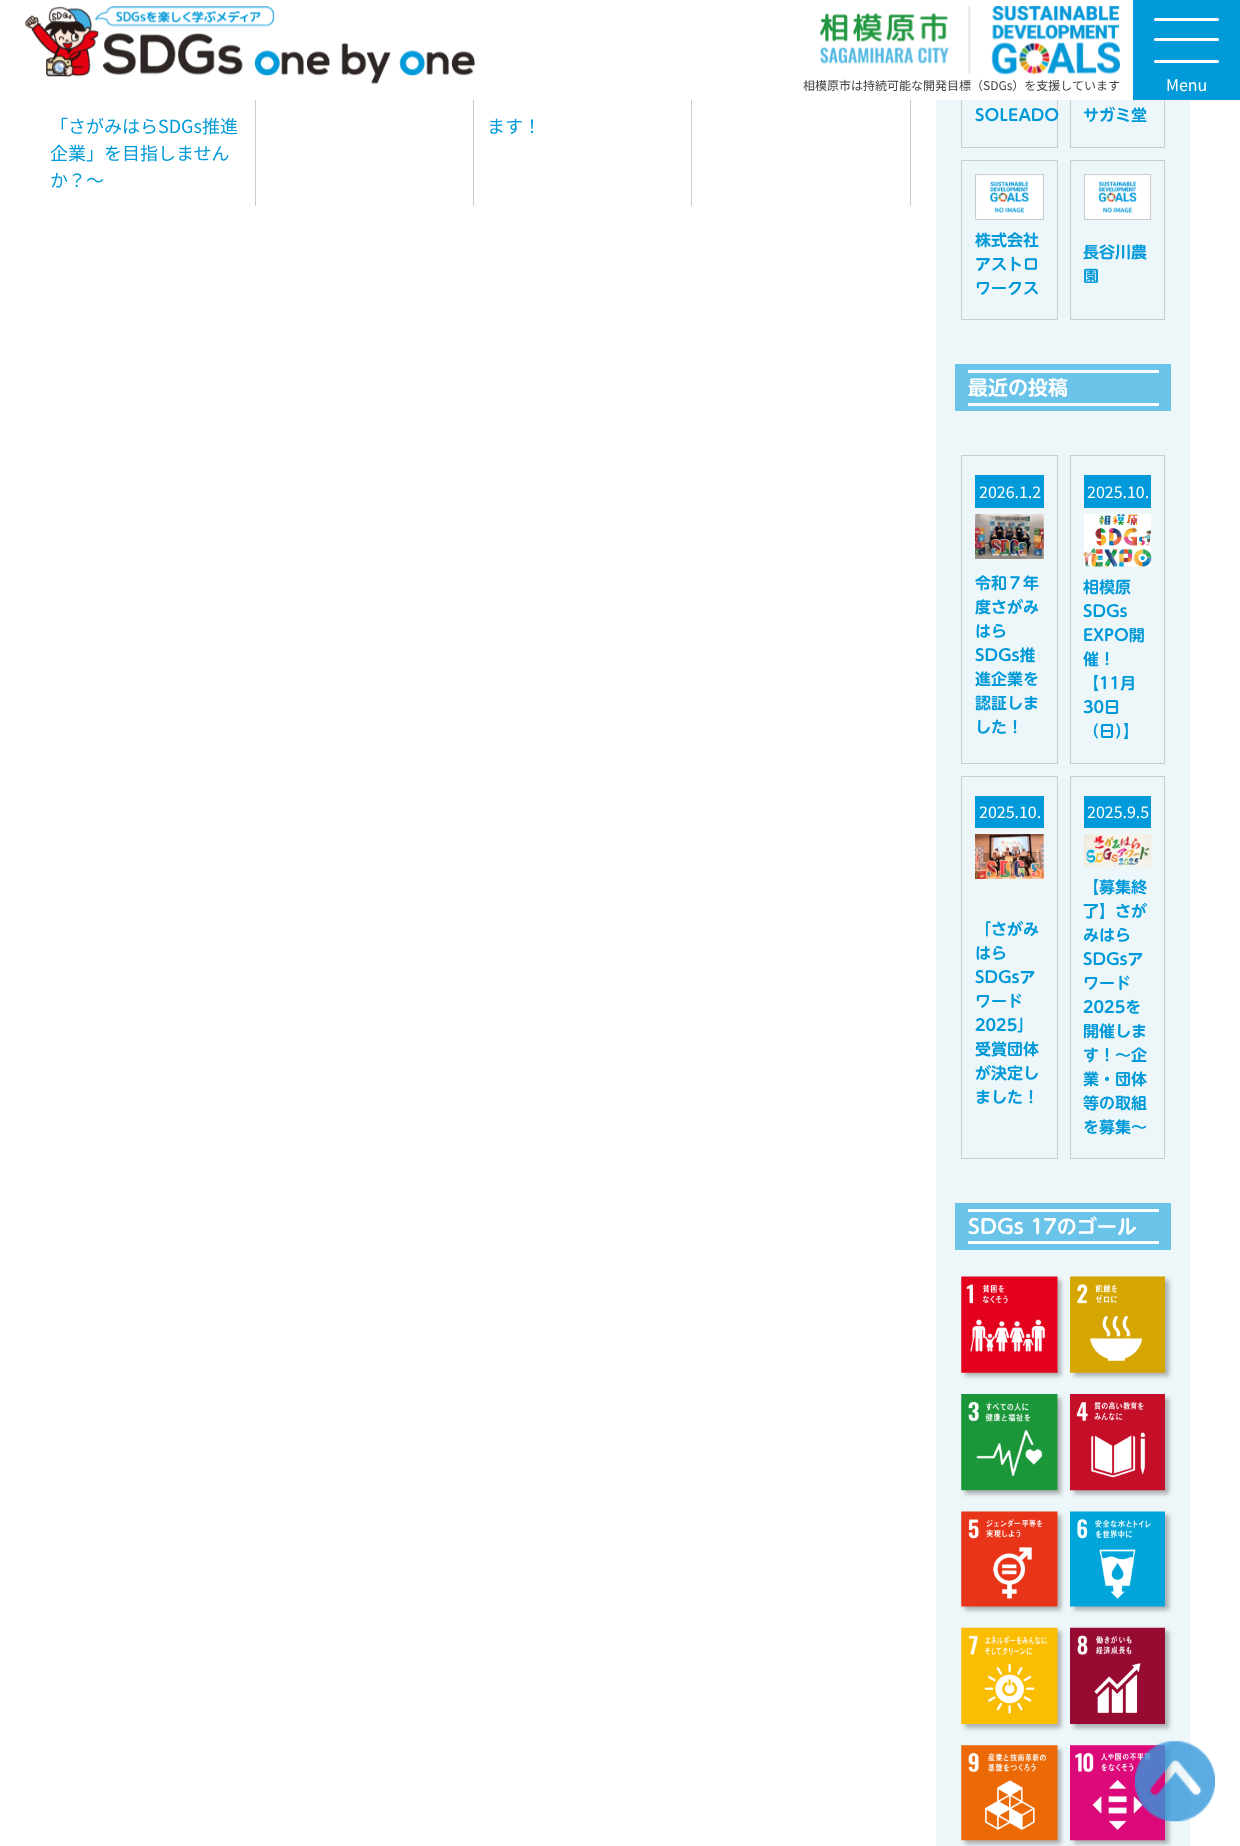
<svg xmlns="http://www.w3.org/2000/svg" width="1240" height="1846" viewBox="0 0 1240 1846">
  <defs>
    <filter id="blur1" x="-50%" y="-200%" width="200%" height="500%"><feGaussianBlur stdDeviation="2"/></filter>
  </defs>
  <rect width="100%" height="100%" fill="#ffffff"/>
  <rect x="936" y="100" width="254" height="1746" fill="#edf6f9"/>
  <rect x="961.5" y="35.5" width="96" height="112" fill="none" stroke="#cccccc"/>
  <rect x="1070.5" y="35.5" width="94" height="112" fill="none" stroke="#cccccc"/>
  <rect x="961" y="35" width="172" height="65" fill="#ffffff"/>
  <image x="25" y="6" width="450" height="79" href="img1.png"/>
  <image x="820" y="6" width="300" height="69" href="img2.png"/>
  <text x="803" y="90" font-family="Noto Sans JP" font-size="12" font-weight="100" fill="#404040">相模原市は持続可能な開発目標（SDGs）を支援しています</text>
  <rect x="1133" y="0" width="107" height="100" fill="#0099d9"/>
  <rect x="1154" y="18" width="65" height="3" rx="1.5" fill="#ffffff"/>
  <rect x="1154" y="38" width="65" height="3" rx="1.5" fill="#ffffff"/>
  <rect x="1154" y="60" width="65" height="3" rx="1.5" fill="#ffffff"/>
  <text x="1166" y="91" font-family="Noto Sans JP" font-size="16" font-weight="100" fill="#ffffff">Menu</text>
  <rect x="255" y="100" width="1" height="106" fill="#cccccc"/>
  <text x="50" y="133" font-family="Noto Sans JP" font-size="18" font-weight="100" fill="#0099d9">「さがみはらSDGs推進</text>
  <text x="50" y="160" font-family="Noto Sans JP" font-size="18" font-weight="100" fill="#0099d9">企業」を目指しません</text>
  <text x="50" y="187" font-family="Noto Sans JP" font-size="18" font-weight="100" fill="#0099d9">か？～</text>
  <rect x="473" y="100" width="1" height="106" fill="#cccccc"/>
  <rect x="691" y="100" width="1" height="106" fill="#cccccc"/>
  <text x="487" y="133" font-family="Noto Sans JP" font-size="18" font-weight="100" fill="#0099d9">ます！</text>
  <rect x="910" y="100" width="1" height="106" fill="#cccccc"/>
  <text x="975" y="121" font-family="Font" font-size="16" font-weight="600" fill="#0099d9">SOLEADO</text>
  <text x="1083" y="121" font-family="Font" font-size="16" font-weight="600" fill="#0099d9">サガミ堂</text>
  <rect x="961.5" y="160.5" width="96" height="159" fill="none" stroke="#cccccc"/>
  <rect x="975.5" y="174.5" width="68" height="45" fill="none" stroke="#cccccc"/>
  <image x="976" y="175" width="67" height="44" href="img3.png"/>
  <text x="975" y="246" font-family="Font" font-size="16" font-weight="600" fill="#0099d9">株式会社</text>
  <text x="975" y="270" font-family="Font" font-size="16" font-weight="600" fill="#0099d9">アストロ</text>
  <text x="975" y="294" font-family="Font" font-size="16" font-weight="600" fill="#0099d9">ワークス</text>
  <rect x="1070.5" y="160.5" width="94" height="159" fill="none" stroke="#cccccc"/>
  <rect x="1084.5" y="174.5" width="66" height="45" fill="none" stroke="#cccccc"/>
  <image x="1085" y="175" width="65" height="44" href="img4.png"/>
  <text x="1083" y="258" font-family="Font" font-size="16" font-weight="600" fill="#0099d9">長谷川農</text>
  <text x="1083" y="282" font-family="Font" font-size="16" font-weight="600" fill="#0099d9">園</text>
  <rect x="955" y="364" width="216" height="47" fill="#6ac3e8"/>
  <rect x="968" y="370" width="191" height="3" fill="#ffffff"/>
  <text x="968" y="395" font-family="Font" font-size="20" font-weight="600" fill="#ffffff">最近の投稿</text>
  <rect x="968" y="403" width="191" height="3" fill="#ffffff"/>
  <rect x="961.5" y="455.5" width="96" height="308" fill="none" stroke="#cccccc"/>
  <rect x="975" y="475" width="69" height="33" fill="#0099d9"/>
  <text x="979" y="498" font-family="Noto Sans JP" font-size="16" font-weight="100" fill="#ffffff">2026.1.2</text>
  <image x="975" y="514" width="69" height="45" href="img5.png"/>
  <text x="975" y="589" font-family="Font" font-size="16" font-weight="600" fill="#0099d9">令和７年</text>
  <text x="975" y="613" font-family="Font" font-size="16" font-weight="600" fill="#0099d9">度さがみ</text>
  <text x="975" y="637" font-family="Font" font-size="16" font-weight="600" fill="#0099d9">はら</text>
  <text x="975" y="661" font-family="Font" font-size="16" font-weight="600" fill="#0099d9">SDGs推</text>
  <text x="975" y="685" font-family="Font" font-size="16" font-weight="600" fill="#0099d9">進企業を</text>
  <text x="975" y="709" font-family="Font" font-size="16" font-weight="600" fill="#0099d9">認証しま</text>
  <text x="975" y="733" font-family="Font" font-size="16" font-weight="600" fill="#0099d9">した！</text>
  <rect x="1070.5" y="455.5" width="94" height="308" fill="none" stroke="#cccccc"/>
  <rect x="1084" y="475" width="67" height="33" fill="#0099d9"/>
  <text x="1087" y="498" font-family="Noto Sans JP" font-size="16" font-weight="100" fill="#ffffff">2025.10.</text>
  <image x="1083" y="514" width="69" height="53" href="img6.png"/>
  <text x="1083" y="593" font-family="Font" font-size="16" font-weight="600" fill="#0099d9">相模原</text>
  <text x="1083" y="617" font-family="Font" font-size="16" font-weight="600" fill="#0099d9">SDGs</text>
  <text x="1083" y="641" font-family="Font" font-size="16" font-weight="600" fill="#0099d9">EXPO開</text>
  <text x="1083" y="665" font-family="Font" font-size="16" font-weight="600" fill="#0099d9">催！</text>
  <text x="1083" y="689" font-family="Font" font-size="16" font-weight="600" fill="#0099d9">【11月</text>
  <text x="1083" y="713" font-family="Font" font-size="16" font-weight="600" fill="#0099d9">30日</text>
  <text x="1083" y="737" font-family="Font" font-size="16" font-weight="600" fill="#0099d9">（日）】</text>
  <rect x="961.5" y="776.5" width="96" height="382" fill="none" stroke="#cccccc"/>
  <rect x="975" y="796" width="69" height="32" fill="#0099d9"/>
  <text x="979" y="818" font-family="Noto Sans JP" font-size="16" font-weight="100" fill="#ffffff">2025.10.</text>
  <image x="975" y="834" width="69" height="45" href="img7.png"/>
  <text x="975" y="935" font-family="Font" font-size="16" font-weight="600" fill="#0099d9">「さがみ</text>
  <text x="975" y="959" font-family="Font" font-size="16" font-weight="600" fill="#0099d9">はら</text>
  <text x="975" y="983" font-family="Font" font-size="16" font-weight="600" fill="#0099d9">SDGsア</text>
  <text x="975" y="1007" font-family="Font" font-size="16" font-weight="600" fill="#0099d9">ワード</text>
  <text x="975" y="1031" font-family="Font" font-size="16" font-weight="600" fill="#0099d9">2025」</text>
  <text x="975" y="1055" font-family="Font" font-size="16" font-weight="600" fill="#0099d9">受賞団体</text>
  <text x="975" y="1079" font-family="Font" font-size="16" font-weight="600" fill="#0099d9">が決定し</text>
  <text x="975" y="1103" font-family="Font" font-size="16" font-weight="600" fill="#0099d9">ました！</text>
  <rect x="1070.5" y="776.5" width="94" height="382" fill="none" stroke="#cccccc"/>
  <rect x="1084" y="796" width="67" height="32" fill="#0099d9"/>
  <text x="1087" y="818" font-family="Noto Sans JP" font-size="16" font-weight="100" fill="#ffffff">2025.9.5</text>
  <image x="1083" y="834" width="69" height="33" href="img8.png"/>
  <text x="1083" y="893" font-family="Font" font-size="16" font-weight="600" fill="#0099d9">【募集終</text>
  <text x="1083" y="917" font-family="Font" font-size="16" font-weight="600" fill="#0099d9">了】さが</text>
  <text x="1083" y="941" font-family="Font" font-size="16" font-weight="600" fill="#0099d9">みはら</text>
  <text x="1083" y="965" font-family="Font" font-size="16" font-weight="600" fill="#0099d9">SDGsア</text>
  <text x="1083" y="989" font-family="Font" font-size="16" font-weight="600" fill="#0099d9">ワード</text>
  <text x="1083" y="1013" font-family="Font" font-size="16" font-weight="600" fill="#0099d9">2025を</text>
  <text x="1083" y="1037" font-family="Font" font-size="16" font-weight="600" fill="#0099d9">開催しま</text>
  <text x="1083" y="1061" font-family="Font" font-size="16" font-weight="600" fill="#0099d9">す！～企</text>
  <text x="1083" y="1085" font-family="Font" font-size="16" font-weight="600" fill="#0099d9">業・団体</text>
  <text x="1083" y="1109" font-family="Font" font-size="16" font-weight="600" fill="#0099d9">等の取組</text>
  <text x="1083" y="1133" font-family="Font" font-size="16" font-weight="600" fill="#0099d9">を募集～</text>
  <rect x="955" y="1203" width="216" height="47" fill="#6ac3e8"/>
  <rect x="968" y="1209" width="191" height="3" fill="#ffffff"/>
  <text x="968" y="1234" font-family="Font" font-size="20" font-weight="600" fill="#ffffff">SDGs 17のゴール</text>
  <rect x="968" y="1241" width="191" height="3" fill="#ffffff"/>
  <rect x="965" y="1280" width="96" height="96" fill="#828282" fill-opacity="0.6" filter="url(#blur1)"/>
  <image x="961" y="1276" width="97" height="97" href="img9.png"/>
  <rect x="1074" y="1280" width="95" height="96" fill="#828282" fill-opacity="0.6" filter="url(#blur1)"/>
  <image x="1070" y="1276" width="95" height="97" href="img10.png"/>
  <rect x="965" y="1398" width="96" height="96" fill="#828282" fill-opacity="0.6" filter="url(#blur1)"/>
  <image x="961" y="1394" width="97" height="97" href="img11.png"/>
  <rect x="1074" y="1398" width="95" height="96" fill="#828282" fill-opacity="0.6" filter="url(#blur1)"/>
  <image x="1070" y="1394" width="95" height="97" href="img12.png"/>
  <rect x="965" y="1515" width="96" height="95" fill="#828282" fill-opacity="0.6" filter="url(#blur1)"/>
  <image x="961" y="1511" width="97" height="96" href="img13.png"/>
  <rect x="1074" y="1515" width="95" height="95" fill="#828282" fill-opacity="0.6" filter="url(#blur1)"/>
  <image x="1070" y="1511" width="95" height="96" href="img14.png"/>
  <rect x="965" y="1631" width="96" height="97" fill="#828282" fill-opacity="0.6" filter="url(#blur1)"/>
  <image x="961" y="1627" width="97" height="97" href="img15.png"/>
  <rect x="1074" y="1631" width="95" height="97" fill="#828282" fill-opacity="0.6" filter="url(#blur1)"/>
  <image x="1070" y="1627" width="95" height="97" href="img16.png"/>
  <rect x="965" y="1749" width="96" height="95" fill="#828282" fill-opacity="0.6" filter="url(#blur1)"/>
  <image x="961" y="1745" width="97" height="96" href="img17.png"/>
  <rect x="1074" y="1749" width="95" height="95" fill="#828282" fill-opacity="0.6" filter="url(#blur1)"/>
  <image x="1070" y="1745" width="95" height="96" href="img18.png"/>
  <image x="1135" y="1741" width="80" height="81" href="img19.png"/>
</svg>
